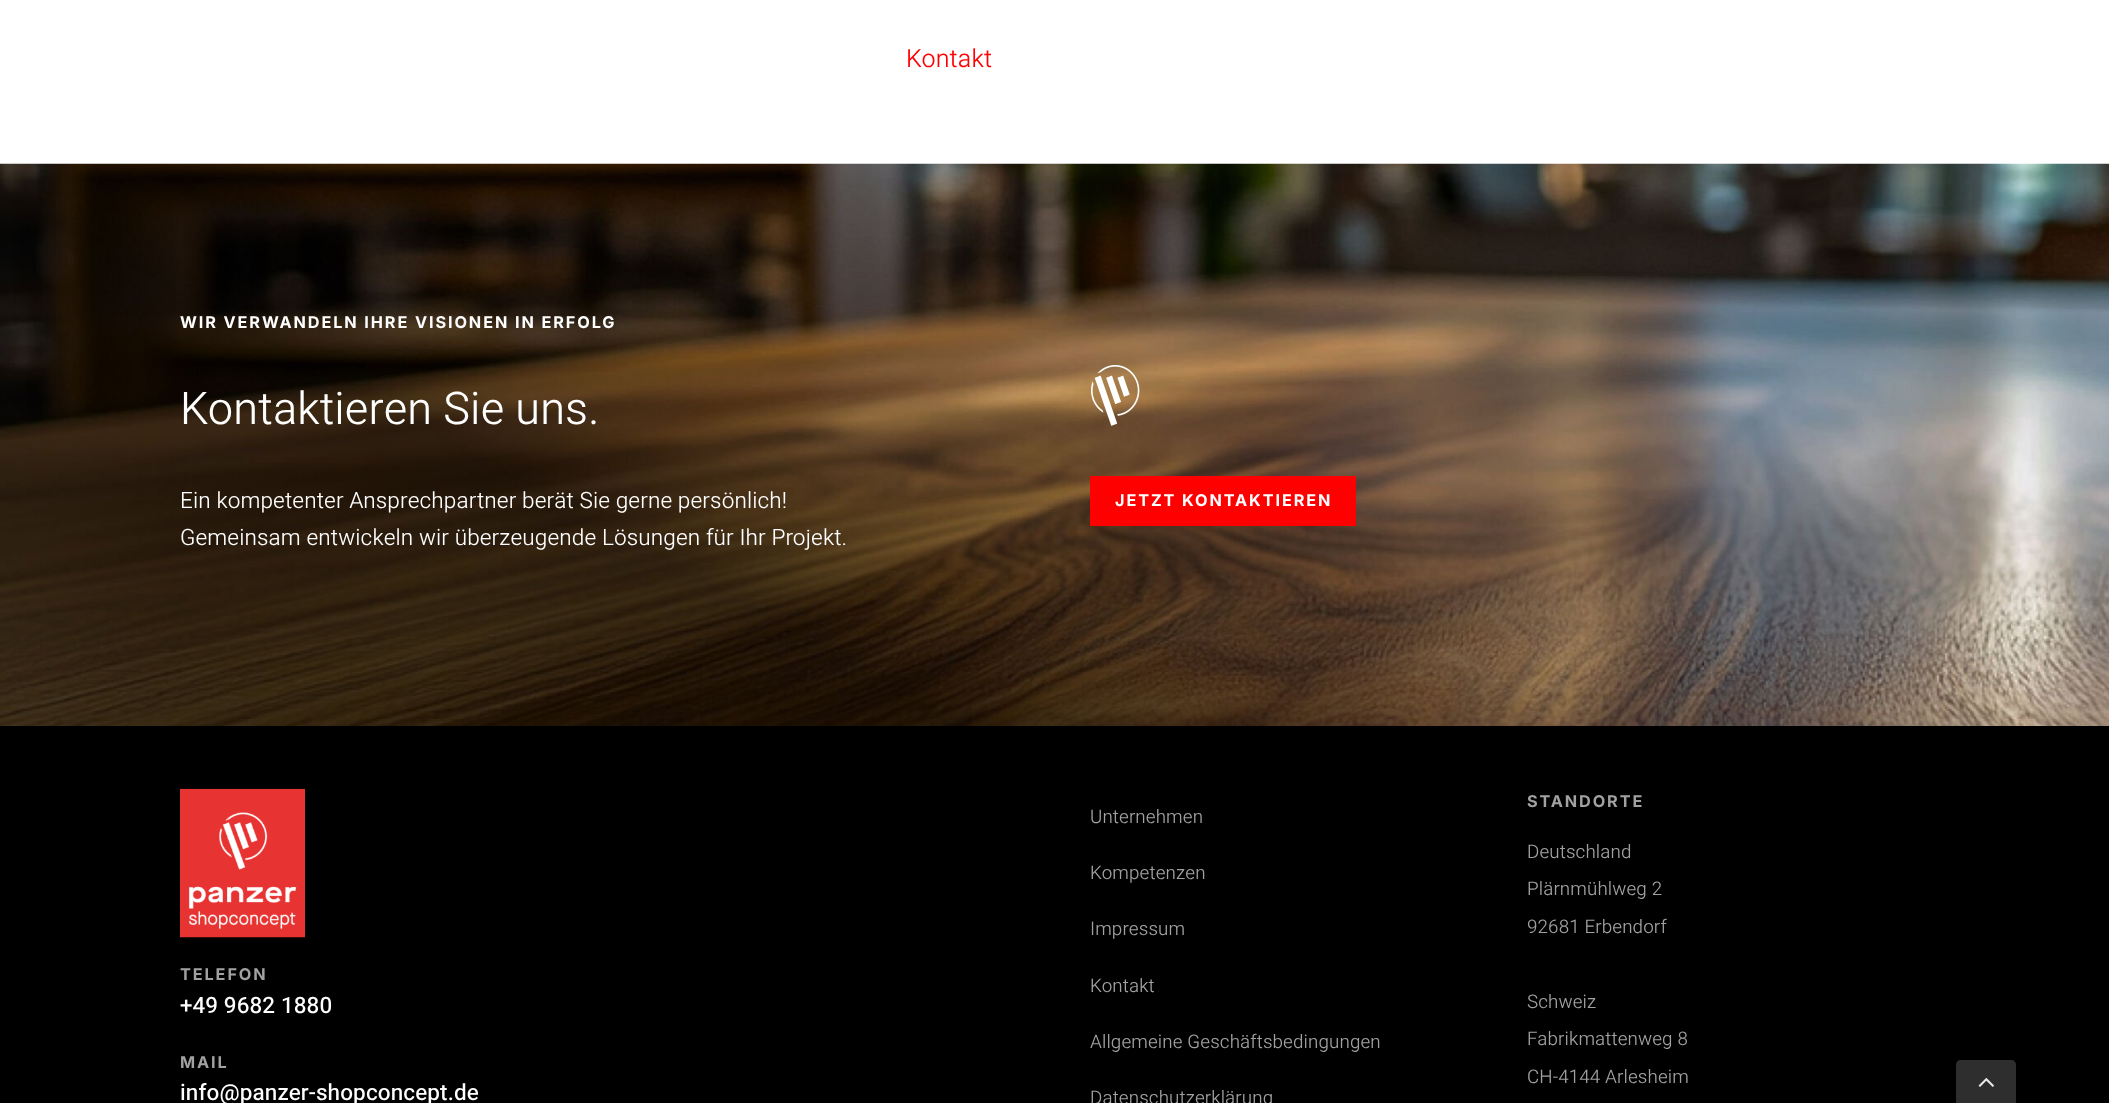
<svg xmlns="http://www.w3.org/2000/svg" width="2109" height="1103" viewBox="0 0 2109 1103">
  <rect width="100%" height="100%" fill="#ffffff"/>
  <text x="906" y="67" font-family="Heebo" font-size="25" font-weight="300" letter-spacing="0.12" fill="#ff0000">Kontakt</text>
  <image x="0" y="163" width="2109" height="563" href="img1.png"/>
  <text x="180" y="328" font-family="Inter" font-size="16.25" font-weight="bold" letter-spacing="1.9" fill="#ffffff">WIR VERWANDELN IHRE VISIONEN IN ERFOLG</text>
  <text x="180" y="424" font-family="Heebo" font-size="45" font-weight="300" letter-spacing="0.12" fill="#ffffff">Kontaktieren Sie uns.</text>
  <text x="180" y="508" font-family="Heebo" font-size="22.5" font-weight="300" letter-spacing="0.12" fill="#ffffff">Ein kompetenter Ansprechpartner berät Sie gerne persönlich!</text>
  <text x="180" y="545" font-family="Heebo" font-size="22.5" font-weight="300" letter-spacing="0.12" fill="#ffffff">Gemeinsam entwickeln wir überzeugende Lösungen für Ihr Projekt.</text>
  <image x="1091" y="365" width="49" height="61" href="img2.png"/>
  <rect x="1090" y="476" width="266" height="50" fill="#ff0000"/>
  <text x="1115" y="506" font-family="Inter" font-size="16.25" font-weight="bold" letter-spacing="1.9" fill="#ffffff">JETZT KONTAKTIEREN</text>
  <rect x="0" y="726" width="2109" height="377" fill="#000000"/>
  <image x="180" y="788" width="125" height="150" href="img3.png"/>
  <text x="180" y="980" font-family="Inter" font-size="16.25" font-weight="bold" letter-spacing="1.9" fill="#a1a1a1">TELEFON</text>
  <text x="180" y="1013" font-family="Heebo" font-size="22.5" font-weight="500" letter-spacing="0.12" fill="#ffffff">+49 9682 1880</text>
  <text x="180" y="1068" font-family="Inter" font-size="16.25" font-weight="bold" letter-spacing="1.9" fill="#a1a1a1">MAIL</text>
  <text x="180" y="1100" font-family="Heebo" font-size="22.5" font-weight="500" letter-spacing="0.12" fill="#ffffff">info@panzer-shopconcept.de</text>
  <text x="1090" y="823" font-family="Heebo" font-size="18.75" font-weight="300" letter-spacing="0.12" fill="#a1a1a1">Unternehmen</text>
  <text x="1090" y="879" font-family="Heebo" font-size="18.75" font-weight="300" letter-spacing="0.12" fill="#a1a1a1">Kompetenzen</text>
  <text x="1090" y="935" font-family="Heebo" font-size="18.75" font-weight="300" letter-spacing="0.12" fill="#a1a1a1">Impressum</text>
  <text x="1090" y="992" font-family="Heebo" font-size="18.75" font-weight="300" letter-spacing="0.12" fill="#a1a1a1">Kontakt</text>
  <text x="1090" y="1048" font-family="Heebo" font-size="18.75" font-weight="300" letter-spacing="0.12" fill="#a1a1a1">Allgemeine Geschäftsbedingungen</text>
  <text x="1090" y="1104" font-family="Heebo" font-size="18.75" font-weight="300" letter-spacing="0.12" fill="#a1a1a1">Datenschutzerklärung</text>
  <text x="1527" y="807" font-family="Inter" font-size="16.25" font-weight="bold" letter-spacing="1.9" fill="#a1a1a1">STANDORTE</text>
  <text x="1527" y="858" font-family="Heebo" font-size="18.75" font-weight="300" letter-spacing="0.12" fill="#a1a1a1">Deutschland</text>
  <text x="1527" y="895" font-family="Heebo" font-size="18.75" font-weight="300" letter-spacing="0.12" fill="#a1a1a1">Plärnmühlweg 2</text>
  <text x="1527" y="933" font-family="Heebo" font-size="18.75" font-weight="300" letter-spacing="0.12" fill="#a1a1a1">92681 Erbendorf</text>
  <text x="1527" y="1008" font-family="Heebo" font-size="18.75" font-weight="300" letter-spacing="0.12" fill="#a1a1a1">Schweiz</text>
  <text x="1527" y="1045" font-family="Heebo" font-size="18.75" font-weight="300" letter-spacing="0.12" fill="#a1a1a1">Fabrikmattenweg 8</text>
  <text x="1527" y="1083" font-family="Heebo" font-size="18.75" font-weight="300" letter-spacing="0.12" fill="#a1a1a1">CH-4144 Arlesheim</text>
  <path d="M1961 1060H2011C2014 1060 2016 1062 2016 1065V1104H1956V1065C1956 1062 1958 1060 1961 1060Z" fill="#2e2e2e"/>
  <image x="1978" y="1078" width="16" height="9" href="img4.png"/>
</svg>
